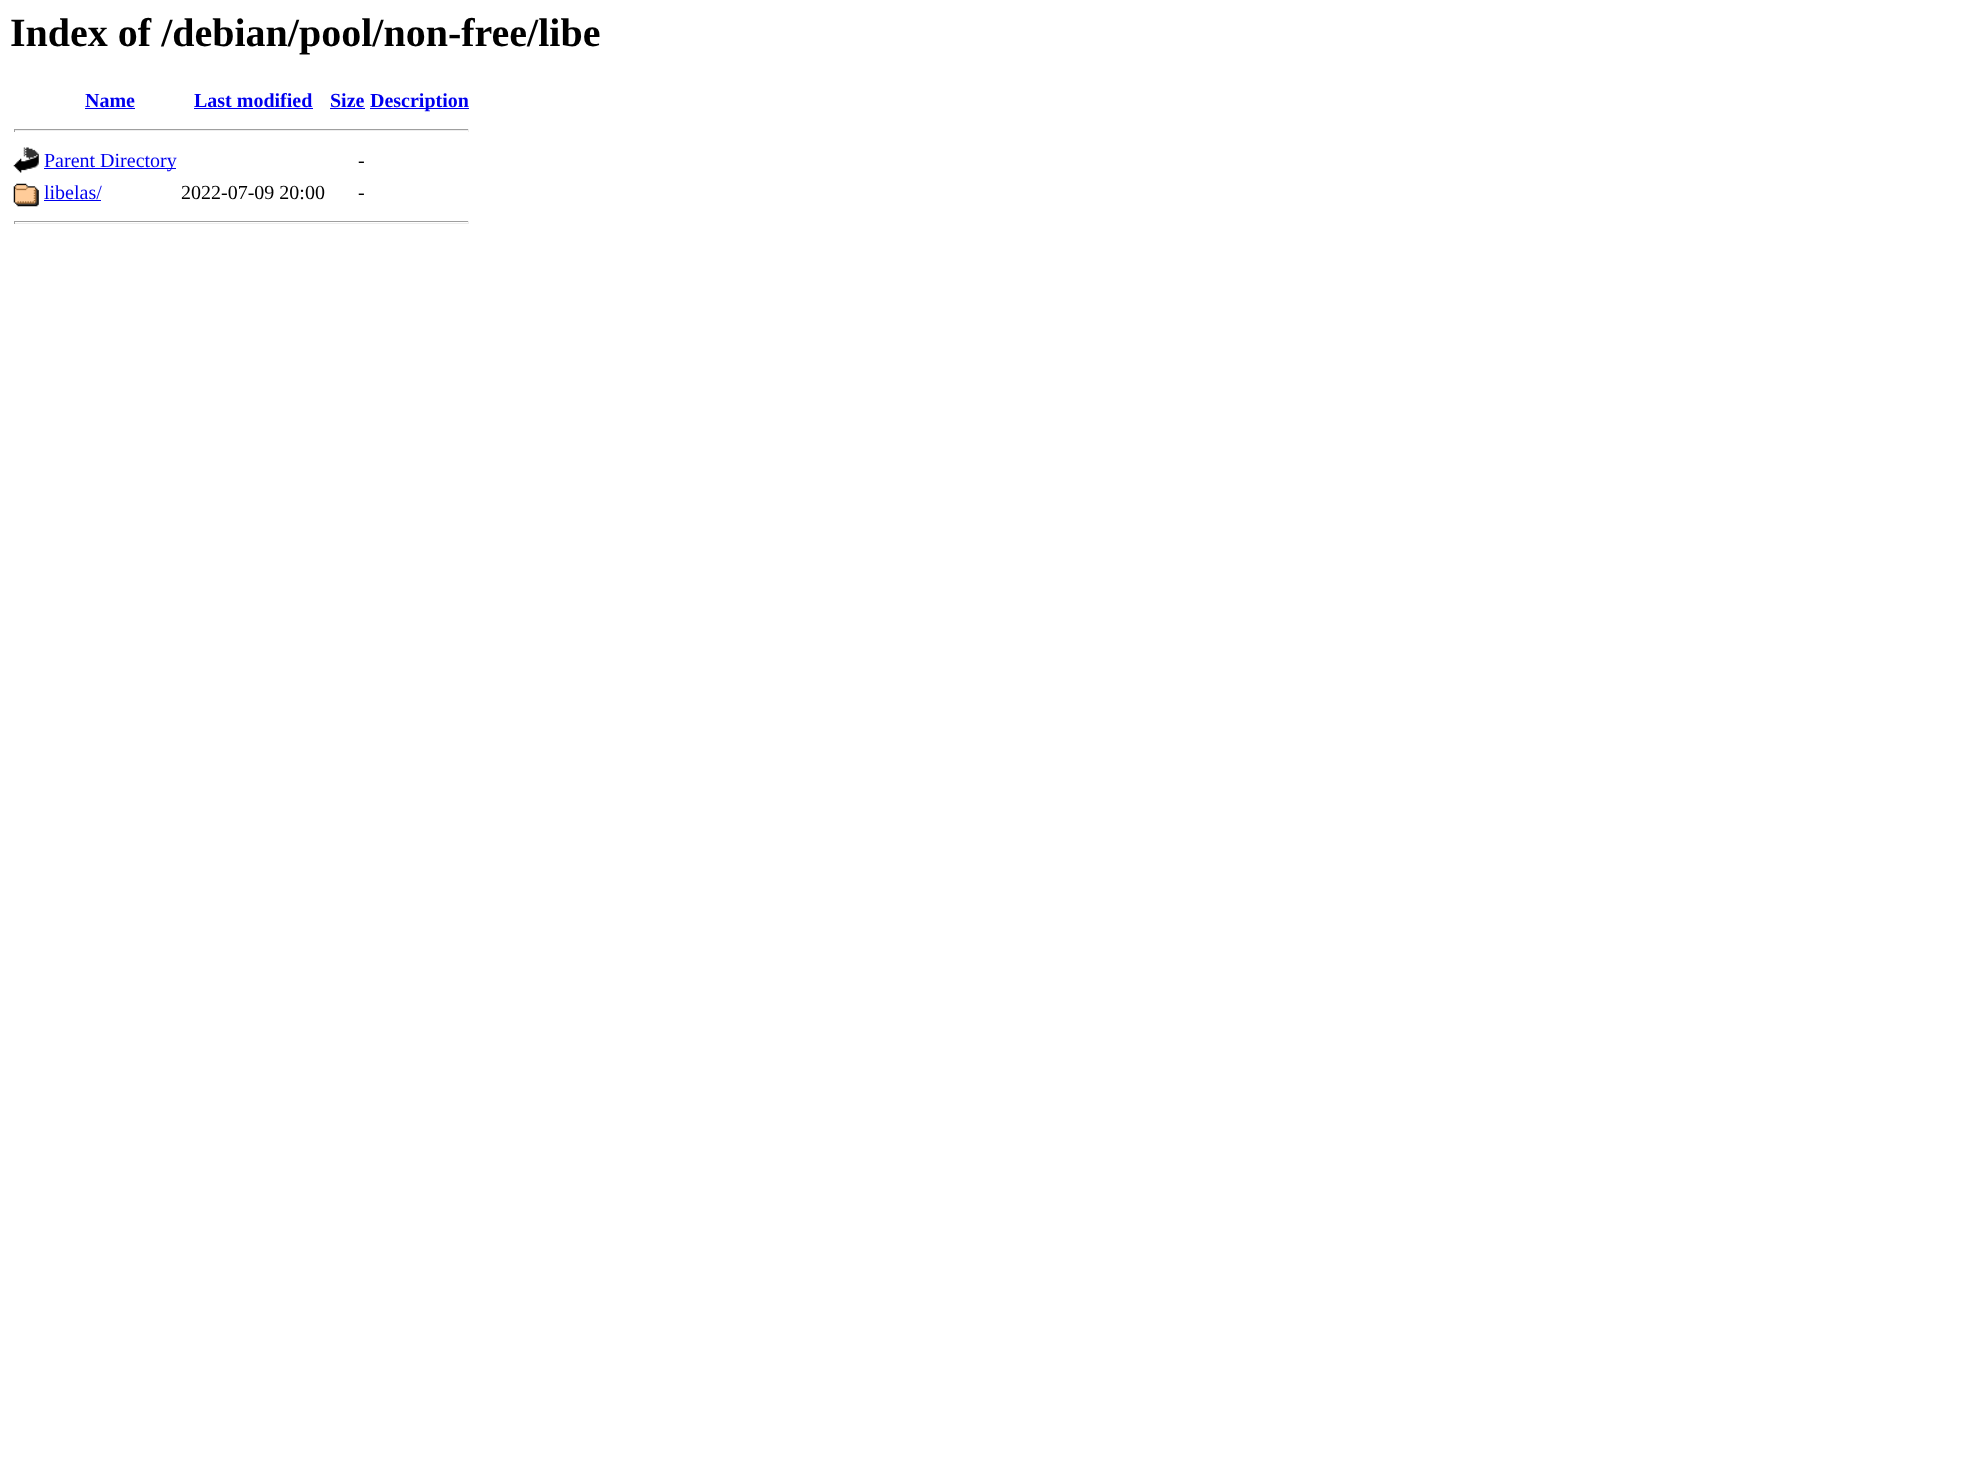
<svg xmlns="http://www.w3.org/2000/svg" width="1964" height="1467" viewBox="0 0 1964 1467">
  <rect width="100%" height="100%" fill="#ffffff"/>
  <text x="10" y="46" font-family="Liberation Serif" font-size="40" font-weight="bold" fill="#000000">Index of /debian/pool/non-free/libe</text>
  <text x="85" y="107" font-family="Liberation Serif" font-size="20" font-weight="bold" fill="#0000ee">Name</text>
  <rect x="85" y="108" width="50" height="1" fill="#0000ee"/>
  <text x="194" y="107" font-family="Liberation Serif" font-size="20" font-weight="bold" fill="#0000ee">Last modified</text>
  <rect x="194" y="108" width="119" height="1" fill="#0000ee"/>
  <text x="330" y="107" font-family="Liberation Serif" font-size="20" font-weight="bold" fill="#0000ee">Size</text>
  <rect x="330" y="108" width="35" height="1" fill="#0000ee"/>
  <rect x="370" y="108" width="99" height="1" fill="#0000ee"/>
  <text x="370" y="107" font-family="Liberation Serif" font-size="20" font-weight="bold" fill="#0000ee">Description</text>
  <rect x="14" y="129" width="455" height="1" fill="#9f9f9f"/>
  <rect x="468" y="129" width="1" height="3" fill="#eeeeee"/>
  <rect x="14" y="130" width="455" height="1" fill="#eeeeee"/>
  <rect x="14" y="129" width="1" height="3" fill="#9f9f9f"/>
  <image x="13" y="147" width="26" height="26" href="img1.png"/>
  <rect x="44" y="168" width="132" height="1" fill="#0000ee"/>
  <text x="44" y="167" font-family="Liberation Serif" font-size="20" fill="#0000ee">Parent Directory</text>
  <text x="358" y="167" font-family="Liberation Serif" font-size="20" fill="#000000">-</text>
  <image x="13" y="183" width="26" height="24" href="img2.png"/>
  <text x="44" y="199" font-family="Liberation Serif" font-size="20" fill="#0000ee">libelas/</text>
  <rect x="44" y="200" width="57" height="1" fill="#0000ee"/>
  <text x="181" y="199" font-family="Liberation Serif" font-size="20" fill="#000000">2022-07-09 20:00</text>
  <text x="358" y="199" font-family="Liberation Serif" font-size="20" fill="#000000">-</text>
  <rect x="14" y="221" width="455" height="1" fill="#9f9f9f"/>
  <rect x="468" y="221" width="1" height="3" fill="#eeeeee"/>
  <rect x="14" y="223" width="455" height="1" fill="#eeeeee"/>
  <rect x="14" y="221" width="1" height="3" fill="#9f9f9f"/>
</svg>
